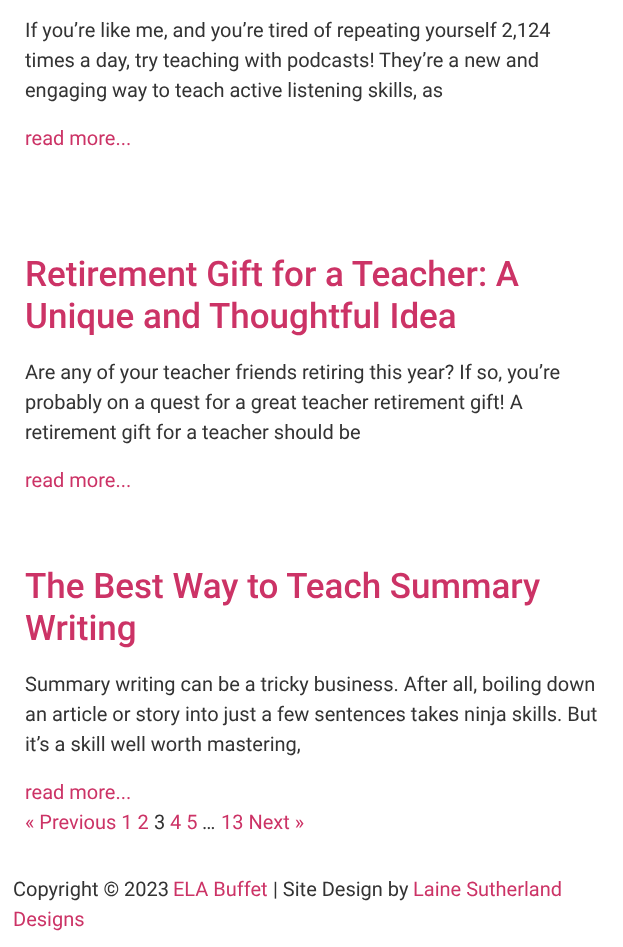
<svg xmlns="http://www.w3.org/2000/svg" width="623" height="947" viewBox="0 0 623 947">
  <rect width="100%" height="100%" fill="#ffffff"/>
  <text x="25" y="37" font-family="Roboto" font-size="20" fill="#333333">If you’re like me, and you’re tired of repeating yourself 2,124</text>
  <text x="25" y="67" font-family="Roboto" font-size="20" fill="#333333">times a day, try teaching with podcasts! They’re a new and</text>
  <text x="25" y="97" font-family="Roboto" font-size="20" fill="#333333">engaging way to teach active listening skills, as</text>
  <text x="25" y="145" font-family="Roboto" font-size="20" fill="#cc3366">read more...</text>
  <text x="25" y="286" font-family="Roboto" font-size="35" font-weight="500" fill="#cc3366">Retirement Gift for a Teacher: A</text>
  <text x="25" y="328" font-family="Roboto" font-size="35" font-weight="500" fill="#cc3366">Unique and Thoughtful Idea</text>
  <text x="25" y="379" font-family="Roboto" font-size="20" fill="#333333">Are any of your teacher friends retiring this year? If so, you’re</text>
  <text x="25" y="409" font-family="Roboto" font-size="20" fill="#333333">probably on a quest for a great teacher retirement gift! A</text>
  <text x="25" y="439" font-family="Roboto" font-size="20" fill="#333333">retirement gift for a teacher should be</text>
  <text x="25" y="487" font-family="Roboto" font-size="20" fill="#cc3366">read more...</text>
  <text x="25" y="598" font-family="Roboto" font-size="35" font-weight="500" fill="#cc3366">The Best Way to Teach Summary</text>
  <text x="25" y="640" font-family="Roboto" font-size="35" font-weight="500" fill="#cc3366">Writing</text>
  <text x="25" y="691" font-family="Roboto" font-size="20" fill="#333333">Summary writing can be a tricky business. After all, boiling down</text>
  <text x="25" y="721" font-family="Roboto" font-size="20" fill="#333333">an article or story into just a few sentences takes ninja skills. But</text>
  <text x="25" y="751" font-family="Roboto" font-size="20" fill="#333333">it’s a skill well worth mastering,</text>
  <text x="25" y="799" font-family="Roboto" font-size="20" fill="#cc3366">read more...</text>
  <text x="25" y="829" font-family="Roboto" font-size="20" fill="#cc3366">« Previous 1 2</text>
  <text x="154" y="829" font-family="Roboto" font-size="20" fill="#333333">3</text>
  <text x="170" y="829" font-family="Roboto" font-size="20" fill="#cc3366">4 5</text>
  <text x="202" y="829" font-family="Roboto" font-size="20" fill="#333333">…</text>
  <text x="221" y="829" font-family="Roboto" font-size="20" fill="#cc3366">13 Next »</text>
  <text x="13" y="896" font-family="Roboto" font-size="20" fill="#333333">Copyright © 2023</text>
  <text x="173" y="896" font-family="Roboto" font-size="20" fill="#cc3366">ELA Buffet</text>
  <text x="273" y="896" font-family="Roboto" font-size="20" fill="#333333">| Site Design by</text>
  <text x="413" y="896" font-family="Roboto" font-size="20" fill="#cc3366">Laine Sutherland</text>
  <text x="13" y="926" font-family="Roboto" font-size="20" fill="#cc3366">Designs</text>
</svg>
